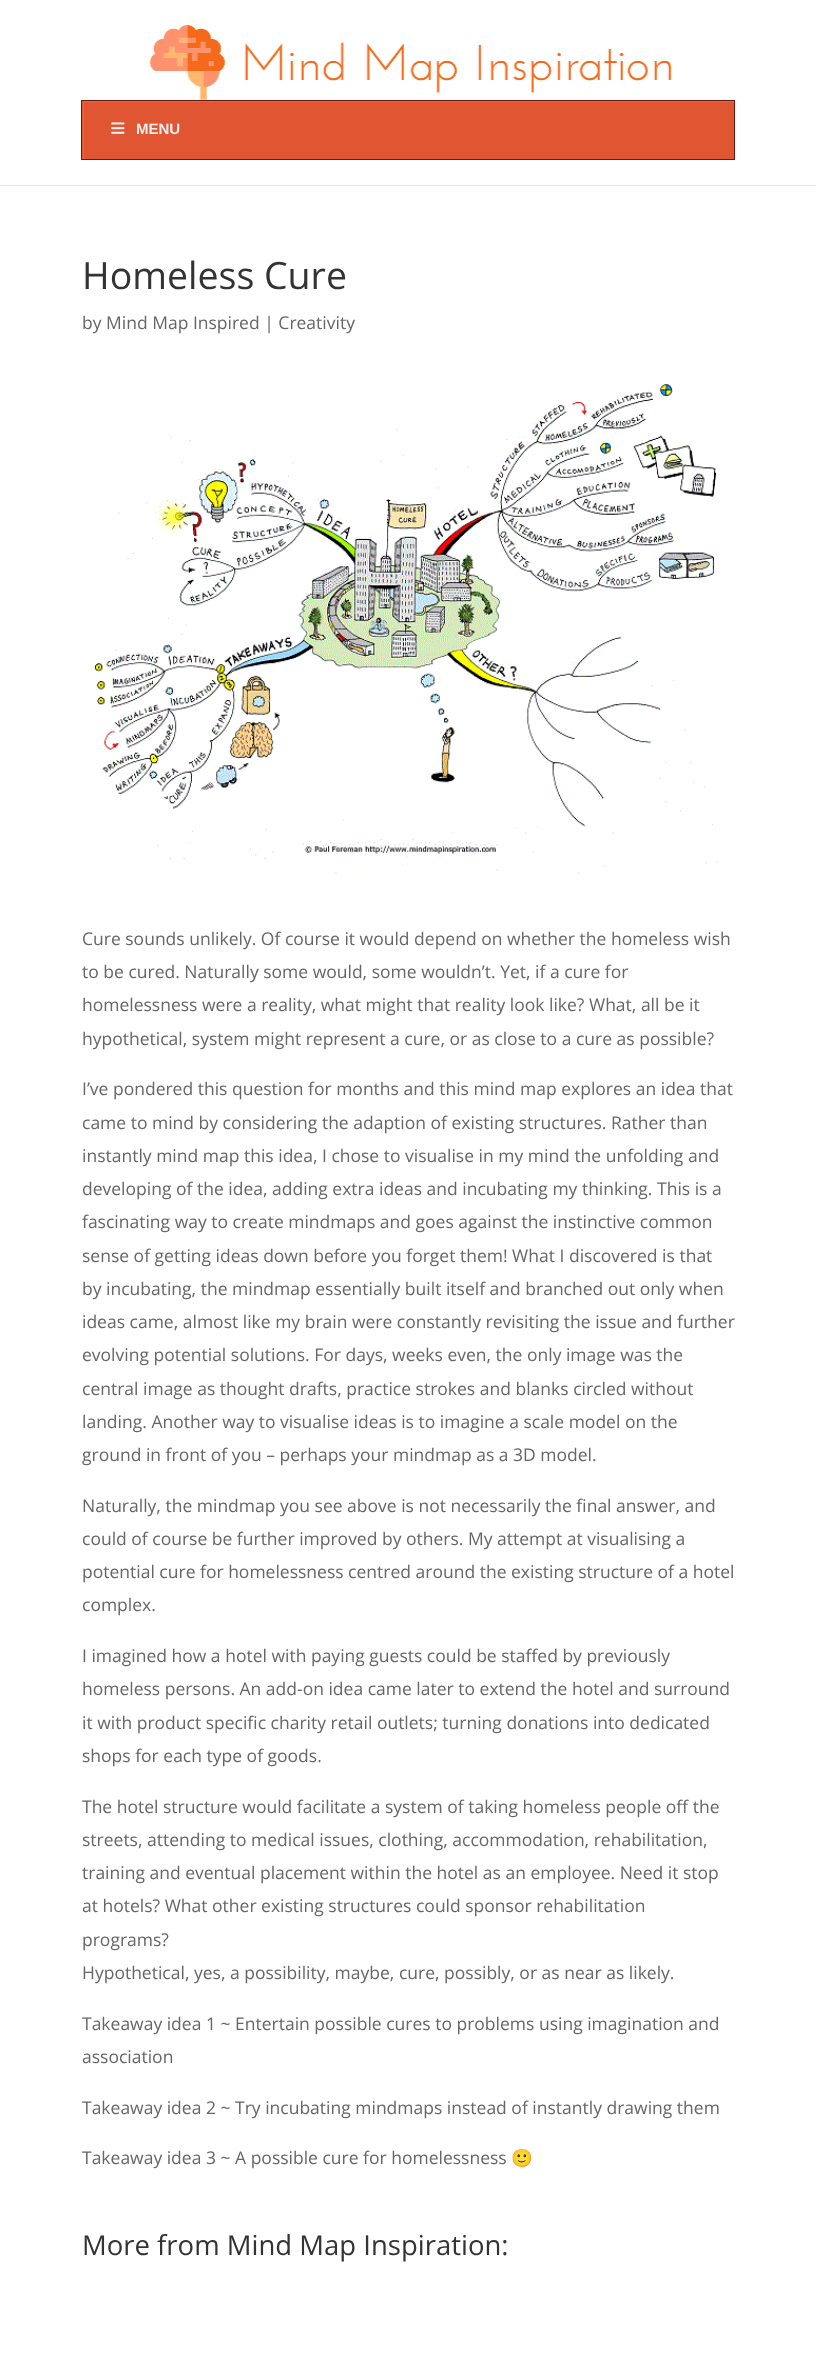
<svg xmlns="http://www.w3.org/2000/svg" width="816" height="2374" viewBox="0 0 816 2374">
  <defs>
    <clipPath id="clip1"><rect x="83" y="101" width="651" height="58"/></clipPath>
  </defs>
  <rect width="100%" height="100%" fill="#ffffff"/>
  <rect x="0" y="185" width="816" height="1" fill="#e6e6e6"/>
  <image x="149" y="25" width="523" height="75" href="img1.png"/>
  <rect x="82" y="101" width="652" height="58" fill="#e05633"/>
  <g clip-path="url(#clip1)">
    <path d="M-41-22H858V282H-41ZM84 102H735V160H84Z" fill="#e36747" fill-rule="evenodd"/>
  </g>
  <rect x="81.5" y="100.5" width="653" height="59" fill="none" stroke="#6b1812"/>
  <image x="111" y="122" width="14" height="12" href="img2.png"/>
  <text x="136" y="134" font-family="Liberation Sans" font-size="15" font-weight="bold" fill="#eeeeee">MENU</text>
  <text x="82" y="289" font-family="Open Sans" font-size="37.5" fill="#333333">Homeless Cure</text>
  <text x="82" y="329" font-family="Open Sans" font-size="17.5" fill="#666666">by Mind Map Inspired | Creativity</text>
  <image x="94" y="384" width="625" height="490" href="img3.png"/>
  <text x="82" y="945" font-family="Open Sans" font-size="17.5" fill="#666666">Cure sounds unlikely. Of course it would depend on whether the homeless wish</text>
  <text x="82" y="978" font-family="Open Sans" font-size="17.5" fill="#666666">to be cured. Naturally some would, some wouldn’t. Yet, if a cure for</text>
  <text x="82" y="1011" font-family="Open Sans" font-size="17.5" fill="#666666">homelessness were a reality, what might that reality look like? What, all be it</text>
  <text x="82" y="1045" font-family="Open Sans" font-size="17.5" fill="#666666">hypothetical, system might represent a cure, or as close to a cure as possible?</text>
  <text x="82" y="1095" font-family="Open Sans" font-size="17.5" fill="#666666">I’ve pondered this question for months and this mind map explores an idea that</text>
  <text x="82" y="1129" font-family="Open Sans" font-size="17.5" fill="#666666">came to mind by considering the adaption of existing structures. Rather than</text>
  <text x="82" y="1162" font-family="Open Sans" font-size="17.5" fill="#666666">instantly mind map this idea, I chose to visualise in my mind the unfolding and</text>
  <text x="82" y="1195" font-family="Open Sans" font-size="17.5" fill="#666666">developing of the idea, adding extra ideas and incubating my thinking. This is a</text>
  <text x="82" y="1228" font-family="Open Sans" font-size="17.5" fill="#666666">fascinating way to create mindmaps and goes against the instinctive common</text>
  <text x="82" y="1262" font-family="Open Sans" font-size="17.5" fill="#666666">sense of getting ideas down before you forget them! What I discovered is that</text>
  <text x="82" y="1295" font-family="Open Sans" font-size="17.5" fill="#666666">by incubating, the mindmap essentially built itself and branched out only when</text>
  <text x="82" y="1328" font-family="Open Sans" font-size="17.5" fill="#666666">ideas came, almost like my brain were constantly revisiting the issue and further</text>
  <text x="82" y="1361" font-family="Open Sans" font-size="17.5" fill="#666666">evolving potential solutions. For days, weeks even, the only image was the</text>
  <text x="82" y="1395" font-family="Open Sans" font-size="17.5" fill="#666666">central image as thought drafts, practice strokes and blanks circled without</text>
  <text x="82" y="1428" font-family="Open Sans" font-size="17.5" fill="#666666">landing. Another way to visualise ideas is to imagine a scale model on the</text>
  <text x="82" y="1461" font-family="Open Sans" font-size="17.5" fill="#666666">ground in front of you – perhaps your mindmap as a 3D model.</text>
  <text x="82" y="1512" font-family="Open Sans" font-size="17.5" fill="#666666">Naturally, the mindmap you see above is not necessarily the final answer, and</text>
  <text x="82" y="1545" font-family="Open Sans" font-size="17.5" fill="#666666">could of course be further improved by others. My attempt at visualising a</text>
  <text x="82" y="1578" font-family="Open Sans" font-size="17.5" fill="#666666">potential cure for homelessness centred around the existing structure of a hotel</text>
  <text x="82" y="1611" font-family="Open Sans" font-size="17.5" fill="#666666">complex.</text>
  <text x="82" y="1662" font-family="Open Sans" font-size="17.5" fill="#666666">I imagined how a hotel with paying guests could be staffed by previously</text>
  <text x="82" y="1695" font-family="Open Sans" font-size="17.5" fill="#666666">homeless persons. An add-on idea came later to extend the hotel and surround</text>
  <text x="82" y="1729" font-family="Open Sans" font-size="17.5" fill="#666666">it with product specific charity retail outlets; turning donations into dedicated</text>
  <text x="82" y="1762" font-family="Open Sans" font-size="17.5" fill="#666666">shops for each type of goods.</text>
  <text x="82" y="1813" font-family="Open Sans" font-size="17.5" fill="#666666">The hotel structure would facilitate a system of taking homeless people off the</text>
  <text x="82" y="1846" font-family="Open Sans" font-size="17.5" fill="#666666">streets, attending to medical issues, clothing, accommodation, rehabilitation,</text>
  <text x="82" y="1879" font-family="Open Sans" font-size="17.5" fill="#666666">training and eventual placement within the hotel as an employee. Need it stop</text>
  <text x="82" y="1912" font-family="Open Sans" font-size="17.5" fill="#666666">at hotels? What other existing structures could sponsor rehabilitation</text>
  <text x="82" y="1946" font-family="Open Sans" font-size="17.5" fill="#666666">programs?</text>
  <text x="82" y="1979" font-family="Open Sans" font-size="17.5" fill="#666666">Hypothetical, yes, a possibility, maybe, cure, possibly, or as near as likely.</text>
  <text x="82" y="2030" font-family="Open Sans" font-size="17.5" fill="#666666">Takeaway idea 1 ~ Entertain possible cures to problems using imagination and</text>
  <text x="82" y="2063" font-family="Open Sans" font-size="17.5" fill="#666666">association</text>
  <text x="82" y="2114" font-family="Open Sans" font-size="17.5" fill="#666666">Takeaway idea 2 ~ Try incubating mindmaps instead of instantly drawing them</text>
  <text x="82" y="2164" font-family="Open Sans" font-size="17.5" fill="#666666">Takeaway idea 3 ~ A possible cure for homelessness</text>
  <text x="511" y="2164" font-family="Noto Color Emoji" font-size="17.5" fill="#666666">🙂</text>
  <text x="82" y="2255" font-family="Open Sans" font-size="27.5" fill="#333333">More from Mind Map Inspiration:</text>
</svg>
